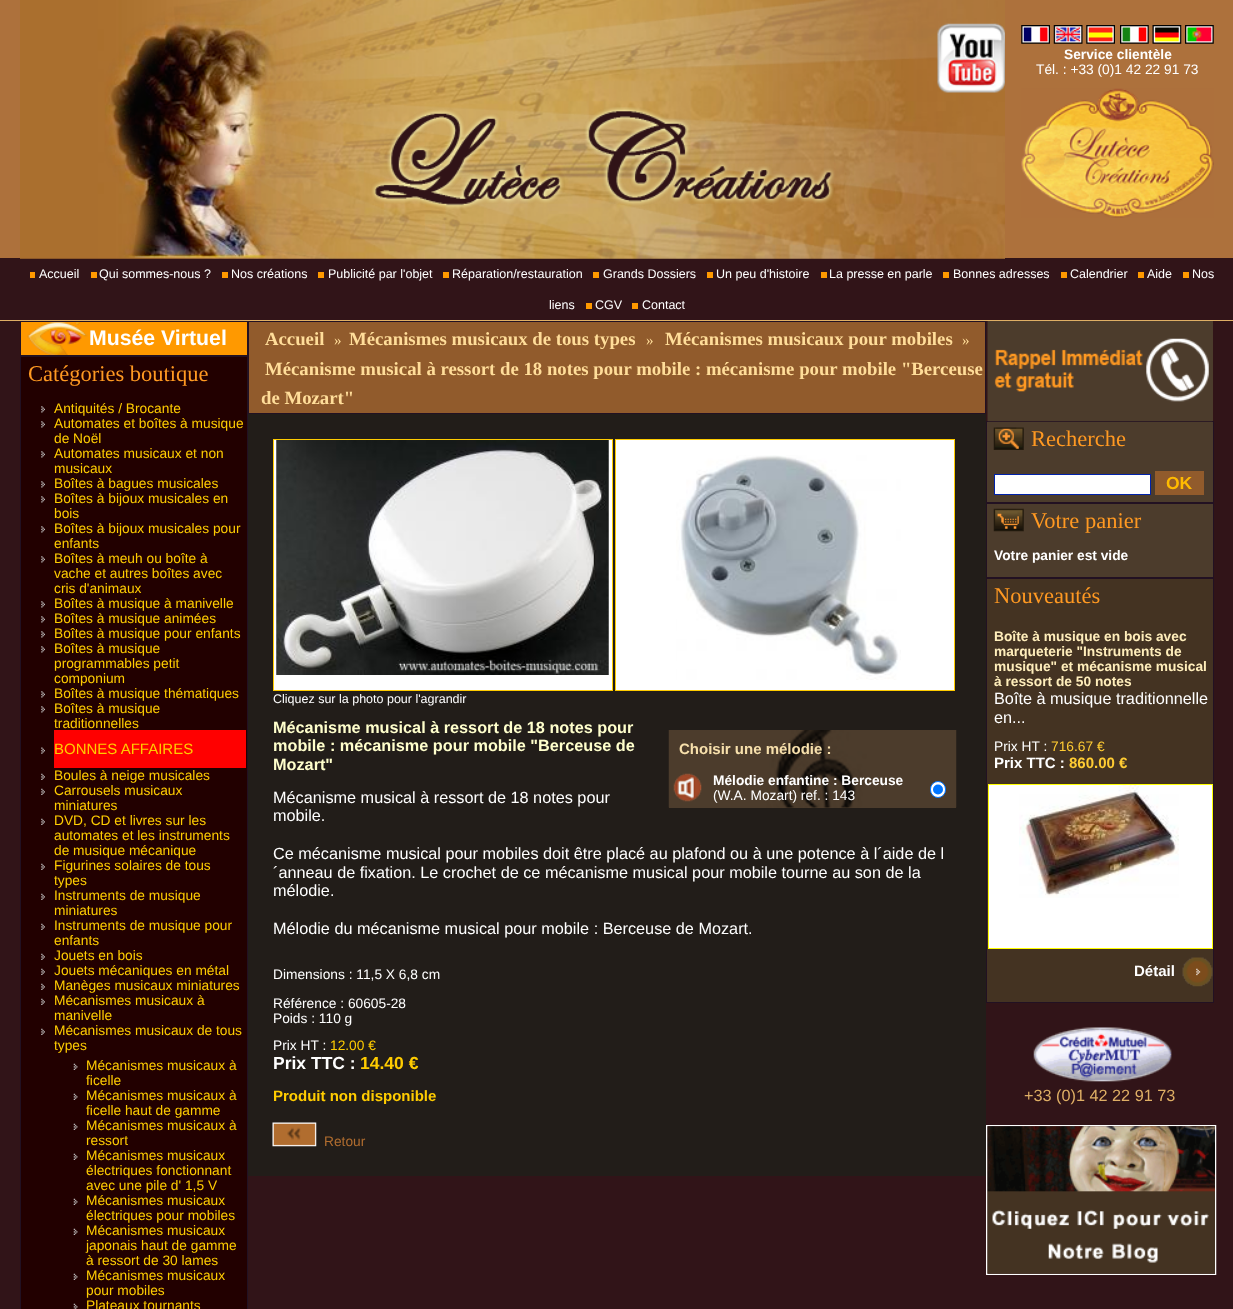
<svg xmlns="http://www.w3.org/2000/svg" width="1233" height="1309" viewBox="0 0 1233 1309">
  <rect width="100%" height="100%" fill="#311418"/>
  <rect x="0" y="0" width="1233" height="258" fill="#ad713c"/>
  <image x="20" y="0" width="985" height="259" href="img1.png"/>
  <image x="937" y="23" width="68" height="70" href="img2.png"/>
  <image x="1021" y="25" width="29" height="19" href="img3.png"/>
  <image x="1053" y="25" width="30" height="19" href="img4.png"/>
  <image x="1086" y="25" width="29" height="19" href="img5.png"/>
  <image x="1120" y="25" width="29" height="19" href="img6.png"/>
  <image x="1152" y="25" width="30" height="19" href="img7.png"/>
  <image x="1185" y="25" width="29" height="19" href="img8.png"/>
  <text x="1064" y="59" font-family="Liberation Sans" font-size="13.75" font-weight="bold" fill="#ffffff">Service clientèle</text>
  <text x="1036" y="74" font-family="Liberation Sans" font-size="13.75" fill="#ffffff">Tél. : +33 (0)1 42 22 91 73</text>
  <image x="1021" y="88" width="193" height="130" href="img9.png"/>
  <image x="371" y="107" width="464" height="102" href="img10.png"/>
  <rect x="0" y="320" width="1233" height="1" fill="#dfaf65"/>
  <text x="39" y="278" font-family="Liberation Sans" font-size="12.5" fill="#ffffff">Accueil</text>
  <rect x="30" y="272" width="5" height="6" fill="#ff9900"/>
  <text x="99" y="278" font-family="Liberation Sans" font-size="12.5" fill="#ffffff">Qui sommes-nous ?</text>
  <rect x="91" y="272" width="6" height="6" fill="#ff9900"/>
  <text x="231" y="278" font-family="Liberation Sans" font-size="12.5" fill="#ffffff">Nos créations</text>
  <rect x="222" y="272" width="6" height="6" fill="#ff9900"/>
  <text x="328" y="278" font-family="Liberation Sans" font-size="12.5" fill="#ffffff">Publicité par l'objet</text>
  <rect x="318" y="272" width="6" height="6" fill="#ff9900"/>
  <text x="452" y="278" font-family="Liberation Sans" font-size="12.5" fill="#ffffff">Réparation/restauration</text>
  <rect x="443" y="272" width="6" height="6" fill="#ff9900"/>
  <text x="603" y="278" font-family="Liberation Sans" font-size="12.5" fill="#ffffff">Grands Dossiers</text>
  <rect x="593" y="272" width="6" height="6" fill="#ff9900"/>
  <text x="716" y="278" font-family="Liberation Sans" font-size="12.5" fill="#ffffff">Un peu d'histoire</text>
  <rect x="707" y="272" width="6" height="6" fill="#ff9900"/>
  <text x="829" y="278" font-family="Liberation Sans" font-size="12.5" fill="#ffffff">La presse en parle</text>
  <rect x="821" y="272" width="6" height="6" fill="#ff9900"/>
  <text x="953" y="278" font-family="Liberation Sans" font-size="12.5" fill="#ffffff">Bonnes adresses</text>
  <rect x="943" y="272" width="6" height="6" fill="#ff9900"/>
  <text x="1070" y="278" font-family="Liberation Sans" font-size="12.5" fill="#ffffff">Calendrier</text>
  <rect x="1061" y="272" width="6" height="6" fill="#ff9900"/>
  <text x="1147" y="278" font-family="Liberation Sans" font-size="12.5" fill="#ffffff">Aide</text>
  <rect x="1138" y="272" width="6" height="6" fill="#ff9900"/>
  <text x="1192" y="278" font-family="Liberation Sans" font-size="12.5" fill="#ffffff">Nos</text>
  <rect x="1183" y="272" width="6" height="6" fill="#ff9900"/>
  <text x="549" y="309" font-family="Liberation Sans" font-size="12.5" fill="#ffffff">liens</text>
  <text x="595" y="309" font-family="Liberation Sans" font-size="12.5" fill="#ffffff">CGV</text>
  <rect x="586" y="303" width="6" height="6" fill="#ff9900"/>
  <text x="642" y="309" font-family="Liberation Sans" font-size="12.5" fill="#ffffff">Contact</text>
  <rect x="632" y="303" width="6" height="6" fill="#ff9900"/>
  <rect x="21" y="322" width="226" height="33" fill="#ff9900"/>
  <image x="27" y="322" width="61" height="33" href="img11.png"/>
  <rect x="20.5" y="321.5" width="227" height="34" fill="none" stroke="#221122"/>
  <text x="89" y="345" font-family="Liberation Sans" font-size="21.25" font-weight="bold" fill="#ffffff">Musée Virtuel</text>
  <rect x="20.5" y="356.5" width="227" height="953" fill="#220000" stroke="#221122"/>
  <text x="28" y="381" font-family="Liberation Serif" font-size="22.5" fill="#ff9922">Catégories boutique</text>
  <image x="41" y="406" width="4" height="7" href="img12.png"/>
  <text x="54" y="413" font-family="Liberation Sans" font-size="13.75" fill="#ffcc00">Antiquités / Brocante</text>
  <image x="41" y="421" width="4" height="7" href="img12.png"/>
  <text x="54" y="428" font-family="Liberation Sans" font-size="13.75" fill="#ffcc00">Automates et boîtes à musique</text>
  <text x="54" y="443" font-family="Liberation Sans" font-size="13.75" fill="#ffcc00">de Noël</text>
  <image x="41" y="451" width="4" height="7" href="img12.png"/>
  <text x="54" y="458" font-family="Liberation Sans" font-size="13.75" fill="#ffcc00">Automates musicaux et non</text>
  <text x="54" y="473" font-family="Liberation Sans" font-size="13.75" fill="#ffcc00">musicaux</text>
  <image x="41" y="481" width="4" height="7" href="img12.png"/>
  <text x="54" y="488" font-family="Liberation Sans" font-size="13.75" fill="#ffcc00">Boîtes à bagues musicales</text>
  <image x="41" y="496" width="4" height="7" href="img12.png"/>
  <text x="54" y="503" font-family="Liberation Sans" font-size="13.75" fill="#ffcc00">Boîtes à bijoux musicales en</text>
  <text x="54" y="518" font-family="Liberation Sans" font-size="13.75" fill="#ffcc00">bois</text>
  <image x="41" y="526" width="4" height="7" href="img12.png"/>
  <text x="54" y="533" font-family="Liberation Sans" font-size="13.75" fill="#ffcc00">Boîtes à bijoux musicales pour</text>
  <text x="54" y="548" font-family="Liberation Sans" font-size="13.75" fill="#ffcc00">enfants</text>
  <image x="41" y="556" width="4" height="7" href="img12.png"/>
  <text x="54" y="563" font-family="Liberation Sans" font-size="13.75" fill="#ffcc00">Boîtes à meuh ou boîte à</text>
  <text x="54" y="578" font-family="Liberation Sans" font-size="13.75" fill="#ffcc00">vache et autres boîtes avec</text>
  <text x="54" y="593" font-family="Liberation Sans" font-size="13.75" fill="#ffcc00">cris d'animaux</text>
  <image x="41" y="601" width="4" height="7" href="img12.png"/>
  <text x="54" y="608" font-family="Liberation Sans" font-size="13.75" fill="#ffcc00">Boîtes à musique à manivelle</text>
  <image x="41" y="616" width="4" height="7" href="img12.png"/>
  <text x="54" y="623" font-family="Liberation Sans" font-size="13.75" fill="#ffcc00">Boîtes à musique animées</text>
  <image x="41" y="631" width="4" height="7" href="img12.png"/>
  <text x="54" y="638" font-family="Liberation Sans" font-size="13.75" fill="#ffcc00">Boîtes à musique pour enfants</text>
  <image x="41" y="646" width="4" height="7" href="img12.png"/>
  <text x="54" y="653" font-family="Liberation Sans" font-size="13.75" fill="#ffcc00">Boîtes à musique</text>
  <text x="54" y="668" font-family="Liberation Sans" font-size="13.75" fill="#ffcc00">programmables petit</text>
  <text x="54" y="683" font-family="Liberation Sans" font-size="13.75" fill="#ffcc00">componium</text>
  <image x="41" y="691" width="4" height="7" href="img12.png"/>
  <text x="54" y="698" font-family="Liberation Sans" font-size="13.75" fill="#ffcc00">Boîtes à musique thématiques</text>
  <image x="41" y="706" width="4" height="7" href="img12.png"/>
  <text x="54" y="713" font-family="Liberation Sans" font-size="13.75" fill="#ffcc00">Boîtes à musique</text>
  <text x="54" y="728" font-family="Liberation Sans" font-size="13.75" fill="#ffcc00">traditionnelles</text>
  <rect x="54" y="730" width="192" height="38" fill="#ff0000"/>
  <image x="41" y="747" width="4" height="7" href="img13.png"/>
  <text x="54" y="754" font-family="Liberation Sans" font-size="15" fill="#ffcc00">BONNES AFFAIRES</text>
  <image x="41" y="773" width="4" height="7" href="img14.png"/>
  <text x="54" y="780" font-family="Liberation Sans" font-size="13.75" fill="#ffcc00">Boules à neige musicales</text>
  <image x="41" y="788" width="4" height="7" href="img14.png"/>
  <text x="54" y="795" font-family="Liberation Sans" font-size="13.75" fill="#ffcc00">Carrousels musicaux</text>
  <text x="54" y="810" font-family="Liberation Sans" font-size="13.75" fill="#ffcc00">miniatures</text>
  <image x="41" y="818" width="4" height="7" href="img14.png"/>
  <text x="54" y="825" font-family="Liberation Sans" font-size="13.75" fill="#ffcc00">DVD, CD et livres sur les</text>
  <text x="54" y="840" font-family="Liberation Sans" font-size="13.75" fill="#ffcc00">automates et les instruments</text>
  <text x="54" y="855" font-family="Liberation Sans" font-size="13.75" fill="#ffcc00">de musique mécanique</text>
  <image x="41" y="863" width="4" height="7" href="img14.png"/>
  <text x="54" y="870" font-family="Liberation Sans" font-size="13.75" fill="#ffcc00">Figurines solaires de tous</text>
  <text x="54" y="885" font-family="Liberation Sans" font-size="13.75" fill="#ffcc00">types</text>
  <image x="41" y="893" width="4" height="7" href="img14.png"/>
  <text x="54" y="900" font-family="Liberation Sans" font-size="13.75" fill="#ffcc00">Instruments de musique</text>
  <text x="54" y="915" font-family="Liberation Sans" font-size="13.75" fill="#ffcc00">miniatures</text>
  <image x="41" y="923" width="4" height="7" href="img14.png"/>
  <text x="54" y="930" font-family="Liberation Sans" font-size="13.75" fill="#ffcc00">Instruments de musique pour</text>
  <text x="54" y="945" font-family="Liberation Sans" font-size="13.75" fill="#ffcc00">enfants</text>
  <image x="41" y="953" width="4" height="7" href="img14.png"/>
  <text x="54" y="960" font-family="Liberation Sans" font-size="13.75" fill="#ffcc00">Jouets en bois</text>
  <image x="41" y="968" width="4" height="7" href="img14.png"/>
  <text x="54" y="975" font-family="Liberation Sans" font-size="13.75" fill="#ffcc00">Jouets mécaniques en métal</text>
  <image x="41" y="983" width="4" height="7" href="img14.png"/>
  <text x="54" y="990" font-family="Liberation Sans" font-size="13.75" fill="#ffcc00">Manèges musicaux miniatures</text>
  <image x="41" y="998" width="4" height="7" href="img14.png"/>
  <text x="54" y="1005" font-family="Liberation Sans" font-size="13.75" fill="#ffcc00">Mécanismes musicaux à</text>
  <text x="54" y="1020" font-family="Liberation Sans" font-size="13.75" fill="#ffcc00">manivelle</text>
  <image x="41" y="1028" width="4" height="7" href="img14.png"/>
  <text x="54" y="1035" font-family="Liberation Sans" font-size="13.75" fill="#ffcc00">Mécanismes musicaux de tous</text>
  <text x="54" y="1050" font-family="Liberation Sans" font-size="13.75" fill="#ffcc00">types</text>
  <image x="73" y="1063" width="5" height="7" href="img15.png"/>
  <text x="86" y="1070" font-family="Liberation Sans" font-size="13.75" fill="#ffcc00">Mécanismes musicaux à</text>
  <text x="86" y="1085" font-family="Liberation Sans" font-size="13.75" fill="#ffcc00">ficelle</text>
  <image x="73" y="1093" width="5" height="7" href="img15.png"/>
  <text x="86" y="1100" font-family="Liberation Sans" font-size="13.75" fill="#ffcc00">Mécanismes musicaux à</text>
  <text x="86" y="1115" font-family="Liberation Sans" font-size="13.75" fill="#ffcc00">ficelle haut de gamme</text>
  <image x="73" y="1123" width="5" height="7" href="img15.png"/>
  <text x="86" y="1130" font-family="Liberation Sans" font-size="13.75" fill="#ffcc00">Mécanismes musicaux à</text>
  <text x="86" y="1145" font-family="Liberation Sans" font-size="13.75" fill="#ffcc00">ressort</text>
  <image x="73" y="1153" width="5" height="7" href="img15.png"/>
  <text x="86" y="1160" font-family="Liberation Sans" font-size="13.75" fill="#ffcc00">Mécanismes musicaux</text>
  <text x="86" y="1175" font-family="Liberation Sans" font-size="13.75" fill="#ffcc00">électriques fonctionnant</text>
  <text x="86" y="1190" font-family="Liberation Sans" font-size="13.75" fill="#ffcc00">avec une pile d' 1,5 V</text>
  <image x="73" y="1198" width="5" height="7" href="img15.png"/>
  <text x="86" y="1205" font-family="Liberation Sans" font-size="13.75" fill="#ffcc00">Mécanismes musicaux</text>
  <text x="86" y="1220" font-family="Liberation Sans" font-size="13.75" fill="#ffcc00">électriques pour mobiles</text>
  <image x="73" y="1228" width="5" height="7" href="img15.png"/>
  <text x="86" y="1235" font-family="Liberation Sans" font-size="13.75" fill="#ffcc00">Mécanismes musicaux</text>
  <text x="86" y="1250" font-family="Liberation Sans" font-size="13.75" fill="#ffcc00">japonais haut de gamme</text>
  <text x="86" y="1265" font-family="Liberation Sans" font-size="13.75" fill="#ffcc00">à ressort de 30 lames</text>
  <image x="73" y="1273" width="5" height="7" href="img15.png"/>
  <text x="86" y="1280" font-family="Liberation Sans" font-size="13.75" fill="#ffcc00">Mécanismes musicaux</text>
  <text x="86" y="1295" font-family="Liberation Sans" font-size="13.75" fill="#ffcc00">pour mobiles</text>
  <image x="73" y="1303" width="5" height="6" href="img16.png"/>
  <text x="86" y="1310" font-family="Liberation Sans" font-size="13.75" fill="#ffcc00">Plateaux tournants</text>
  <rect x="248.5" y="321.5" width="737" height="92" fill="#915b2c" stroke="#221122"/>
  <text x="265" y="345" font-family="Liberation Serif" font-size="18.75" font-weight="bold" fill="#ffdd99">Accueil</text>
  <text x="334" y="345" font-family="Liberation Serif" font-size="15" fill="#ffdd99">»</text>
  <text x="349" y="345" font-family="Liberation Serif" font-size="18.75" font-weight="bold" fill="#ffdd99">Mécanismes musicaux de tous types</text>
  <text x="646" y="345" font-family="Liberation Serif" font-size="15" fill="#ffdd99">»</text>
  <text x="665" y="345" font-family="Liberation Serif" font-size="18.75" font-weight="bold" fill="#ffdd99">Mécanismes musicaux pour mobiles</text>
  <text x="962" y="345" font-family="Liberation Serif" font-size="15" fill="#ffdd99">»</text>
  <text x="265" y="375" font-family="Liberation Serif" font-size="18.75" font-weight="bold" fill="#ffdd99">Mécanisme musical à ressort de 18 notes pour mobile : mécanisme pour mobile "Berceuse</text>
  <text x="261" y="404" font-family="Liberation Serif" font-size="18.75" font-weight="bold" fill="#ffdd99">de Mozart"</text>
  <rect x="248" y="414" width="738" height="762" fill="#221d19"/>
  <rect x="273.5" y="439.5" width="339" height="251" fill="#ffffff" stroke="#ffcc00"/>
  <image x="276" y="440" width="333" height="235" href="img17.png"/>
  <rect x="615.5" y="439.5" width="339" height="251" fill="#ffffff" stroke="#ffcc00"/>
  <image x="676" y="455" width="225" height="225" href="img18.png"/>
  <text x="273" y="703" font-family="Liberation Sans" font-size="12.5" fill="#ffffff">Cliquez sur la photo pour l'agrandir</text>
  <text x="273" y="733" font-family="Liberation Sans" font-size="16.25" font-weight="bold" fill="#ffffcc">Mécanisme musical à ressort de 18 notes pour</text>
  <text x="273" y="751" font-family="Liberation Sans" font-size="16.25" font-weight="bold" fill="#ffffcc">mobile : mécanisme pour mobile "Berceuse de</text>
  <text x="273" y="770" font-family="Liberation Sans" font-size="16.25" font-weight="bold" fill="#ffffcc">Mozart"</text>
  <rect x="669" y="807" width="287" height="1" fill="#4c3c2c"/>
  <image x="668" y="730" width="289" height="78" href="img19.png"/>
  <text x="679" y="754" font-family="Liberation Sans" font-size="15" font-weight="bold" fill="#f7e0ac">Choisir une mélodie :</text>
  <image x="673" y="773" width="29" height="29" href="img20.png"/>
  <text x="713" y="785" font-family="Liberation Sans" font-size="13.75" font-weight="bold" fill="#ffffff">Mélodie enfantine : Berceuse</text>
  <text x="713" y="800" font-family="Liberation Sans" font-size="13.75" fill="#ffffff">(W.A. Mozart) ref. : 143</text>
  <rect x="930.5" y="781.5" width="15" height="16" rx="7.5" fill="#ffffff" stroke="#0075ff"/>
  <circle cx="938" cy="789.5" r="5" fill="#0075ff"/>
  <text x="273" y="803" font-family="Liberation Sans" font-size="16.25" fill="#ffffff">Mécanisme musical à ressort de 18 notes pour</text>
  <text x="273" y="821" font-family="Liberation Sans" font-size="16.25" fill="#ffffff">mobile.</text>
  <text x="273" y="859" font-family="Liberation Sans" font-size="16.25" fill="#ffffff">Ce mécanisme musical pour mobiles doit être placé au plafond ou à une potence à l´aide de l</text>
  <text x="273" y="878" font-family="Liberation Sans" font-size="16.25" fill="#ffffff">´anneau de fixation. Le crochet de ce mécanisme musical pour mobile tourne au son de la</text>
  <text x="273" y="896" font-family="Liberation Sans" font-size="16.25" fill="#ffffff">mélodie.</text>
  <text x="273" y="934" font-family="Liberation Sans" font-size="16.25" fill="#ffffff">Mélodie du mécanisme musical pour mobile : Berceuse de Mozart.</text>
  <text x="273" y="979" font-family="Liberation Sans" font-size="13.75" fill="#ffffff">Dimensions : 11,5 X 6,8 cm</text>
  <text x="273" y="1008" font-family="Liberation Sans" font-size="13.75" fill="#ffffff">Référence : 60605-28</text>
  <text x="273" y="1023" font-family="Liberation Sans" font-size="13.75" fill="#ffffff">Poids : 110 g</text>
  <text x="273" y="1050" font-family="Liberation Sans" font-size="13.75" fill="#ffffff">Prix HT :</text>
  <text x="330" y="1050" font-family="Liberation Sans" font-size="13.75" fill="#ffcc00">12.00 €</text>
  <text x="273" y="1069" font-family="Liberation Sans" font-size="17.5" font-weight="bold" fill="#ffffff">Prix TTC :</text>
  <text x="360" y="1069" font-family="Liberation Sans" font-size="17.5" font-weight="bold" fill="#ffcc00">14.40 €</text>
  <text x="273" y="1101" font-family="Liberation Sans" font-size="15" font-weight="bold" fill="#ffcc00">Produit non disponible</text>
  <image x="272" y="1122" width="45" height="25" href="img21.png"/>
  <text x="324" y="1146" font-family="Liberation Sans" font-size="13.75" fill="#b16d2f">Retour</text>
  <rect x="988" y="321" width="225" height="100" fill="#4c3c2c"/>
  <rect x="986.5" y="421.5" width="227" height="81" fill="#4c3c2c" stroke="#221122"/>
  <image x="987" y="321" width="226" height="101" href="img22.png"/>
  <image x="993" y="427" width="31" height="23" href="img23.png"/>
  <text x="1031" y="446" font-family="Liberation Serif" font-size="22.5" fill="#ff9922">Recherche</text>
  <rect x="994.5" y="474.5" width="156" height="20" fill="#ffffff" stroke="#0022aa"/>
  <rect x="1155" y="471" width="49" height="24" fill="#915b2c"/>
  <text x="1166" y="489" font-family="Liberation Sans" font-size="17.5" font-weight="bold" fill="#ffbb00">OK</text>
  <rect x="986.5" y="503.5" width="227" height="74" fill="#4c3c2c" stroke="#221122"/>
  <image x="993" y="508" width="31" height="24" href="img24.png"/>
  <text x="1031" y="528" font-family="Liberation Serif" font-size="22.5" fill="#ff9922">Votre panier</text>
  <text x="994" y="560" font-family="Liberation Sans" font-size="13.75" font-weight="bold" fill="#ffffff">Votre panier est vide</text>
  <rect x="986.5" y="578.5" width="227" height="424" fill="#443322" stroke="#221122"/>
  <text x="994" y="603" font-family="Liberation Serif" font-size="22.5" fill="#ff9922">Nouveautés</text>
  <text x="994" y="641" font-family="Liberation Sans" font-size="13.75" font-weight="bold" fill="#ffeebb">Boîte à musique en bois avec</text>
  <text x="994" y="656" font-family="Liberation Sans" font-size="13.75" font-weight="bold" fill="#ffeebb">marqueterie "Instruments de</text>
  <text x="994" y="671" font-family="Liberation Sans" font-size="13.75" font-weight="bold" fill="#ffeebb">musique" et mécanisme musical</text>
  <text x="994" y="686" font-family="Liberation Sans" font-size="13.75" font-weight="bold" fill="#ffeebb">à ressort de 50 notes</text>
  <text x="994" y="704" font-family="Liberation Sans" font-size="16.25" fill="#ffffff">Boîte à musique traditionnelle</text>
  <text x="994" y="723" font-family="Liberation Sans" font-size="16.25" fill="#ffffff">en...</text>
  <text x="994" y="751" font-family="Liberation Sans" font-size="13.75" fill="#ffffff">Prix HT :</text>
  <text x="1051" y="751" font-family="Liberation Sans" font-size="13.75" fill="#ffcc33">716.67 €</text>
  <text x="994" y="768" font-family="Liberation Sans" font-size="15" font-weight="bold" fill="#ffffff">Prix TTC :</text>
  <text x="1069" y="768" font-family="Liberation Sans" font-size="15" font-weight="bold" fill="#ffcc33">860.00 €</text>
  <rect x="988.5" y="784.5" width="224" height="164" fill="#ffffff" stroke="#ffff00"/>
  <image x="1019" y="785" width="160" height="113" href="img25.png"/>
  <image x="1182" y="957" width="31" height="30" href="img26.png"/>
  <text x="1134" y="976" font-family="Liberation Sans" font-size="15" font-weight="bold" fill="#ffffff">Détail</text>
  <image x="1033" y="1027" width="139" height="55" href="img27.png"/>
  <text x="1024" y="1101" font-family="Liberation Sans" font-size="16.25" fill="#dfaf65">+33 (0)1 42 22 91 73</text>
  <rect x="986.5" y="1125.5" width="229" height="149" fill="none" stroke="#ffffff"/>
  <image x="987" y="1125" width="230" height="150" href="img28.png"/>
</svg>
